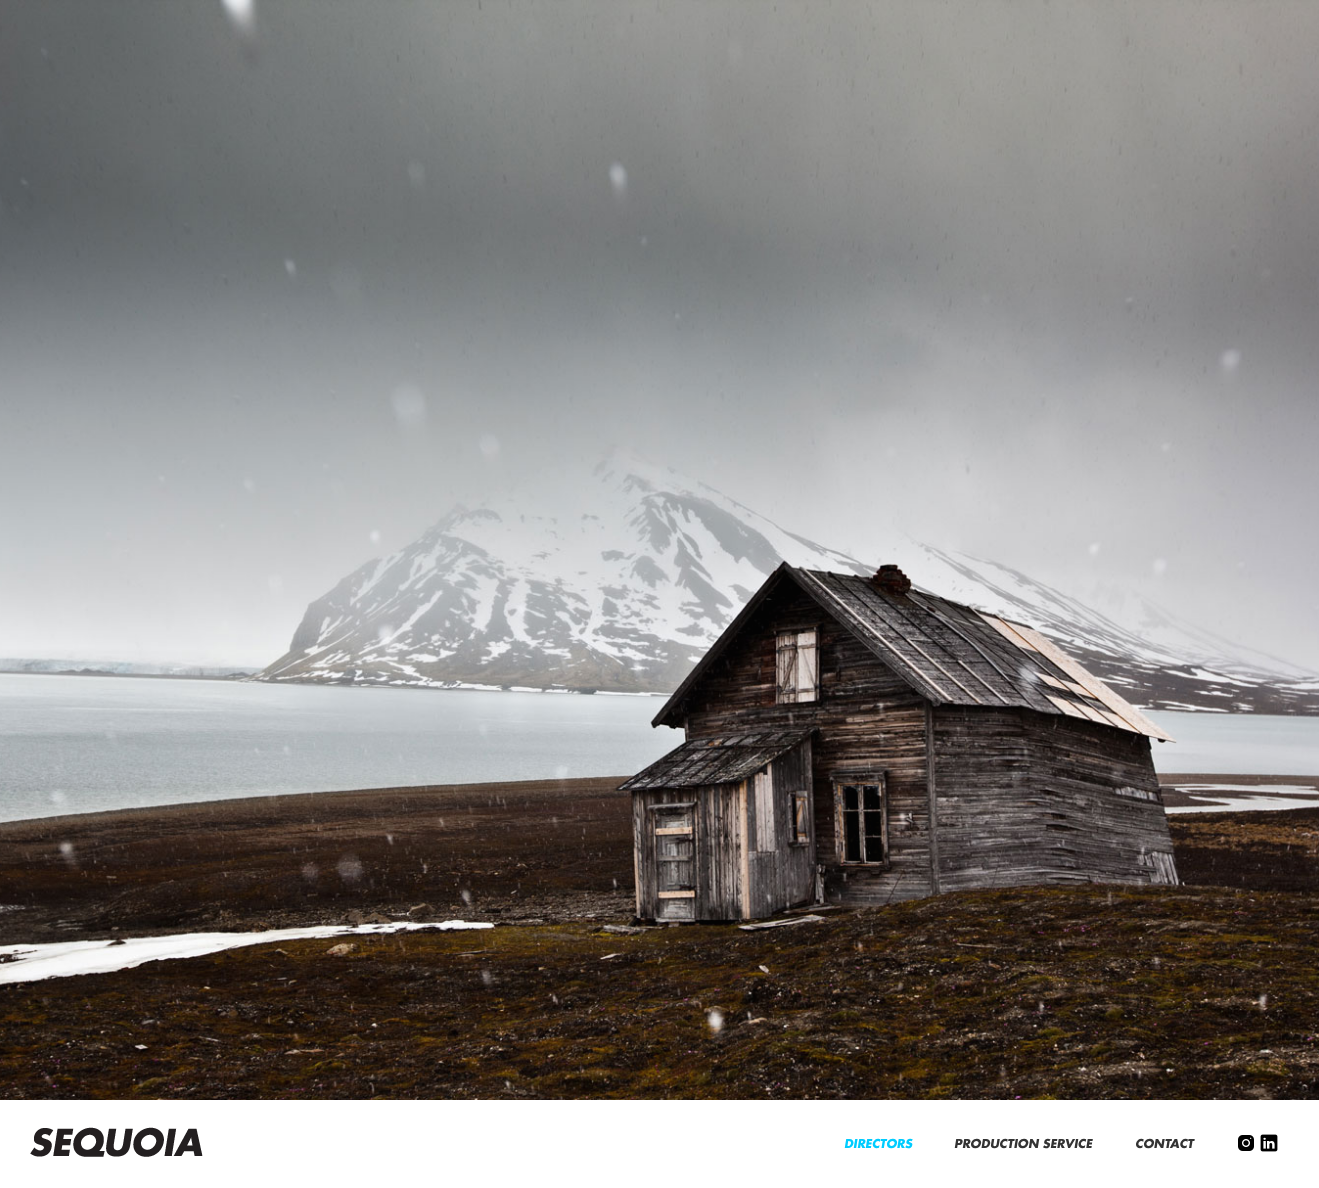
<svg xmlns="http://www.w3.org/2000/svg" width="1319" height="1188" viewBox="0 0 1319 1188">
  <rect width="100%" height="100%" fill="#ffffff"/>
  <image x="0" y="0" width="1319" height="1100" href="img1.png"/>
  <image x="30" y="1127" width="173" height="30" href="img2.png"/>
  <text x="844" y="1148" font-family="Futura" font-size="12" font-weight="bold" font-style="italic" fill="#00ccff">DIRECTORS</text>
  <text x="954" y="1148" font-family="Futura" font-size="12" font-weight="bold" font-style="italic" fill="#333333">PRODUCTION SERVICE</text>
  <text x="1135" y="1148" font-family="Futura" font-size="12" font-weight="bold" font-style="italic" fill="#333333">CONTACT</text>
  <image x="1238" y="1135" width="16" height="16" href="img3.png"/>
  <image x="1260" y="1134" width="18" height="18" href="img4.png"/>
</svg>
